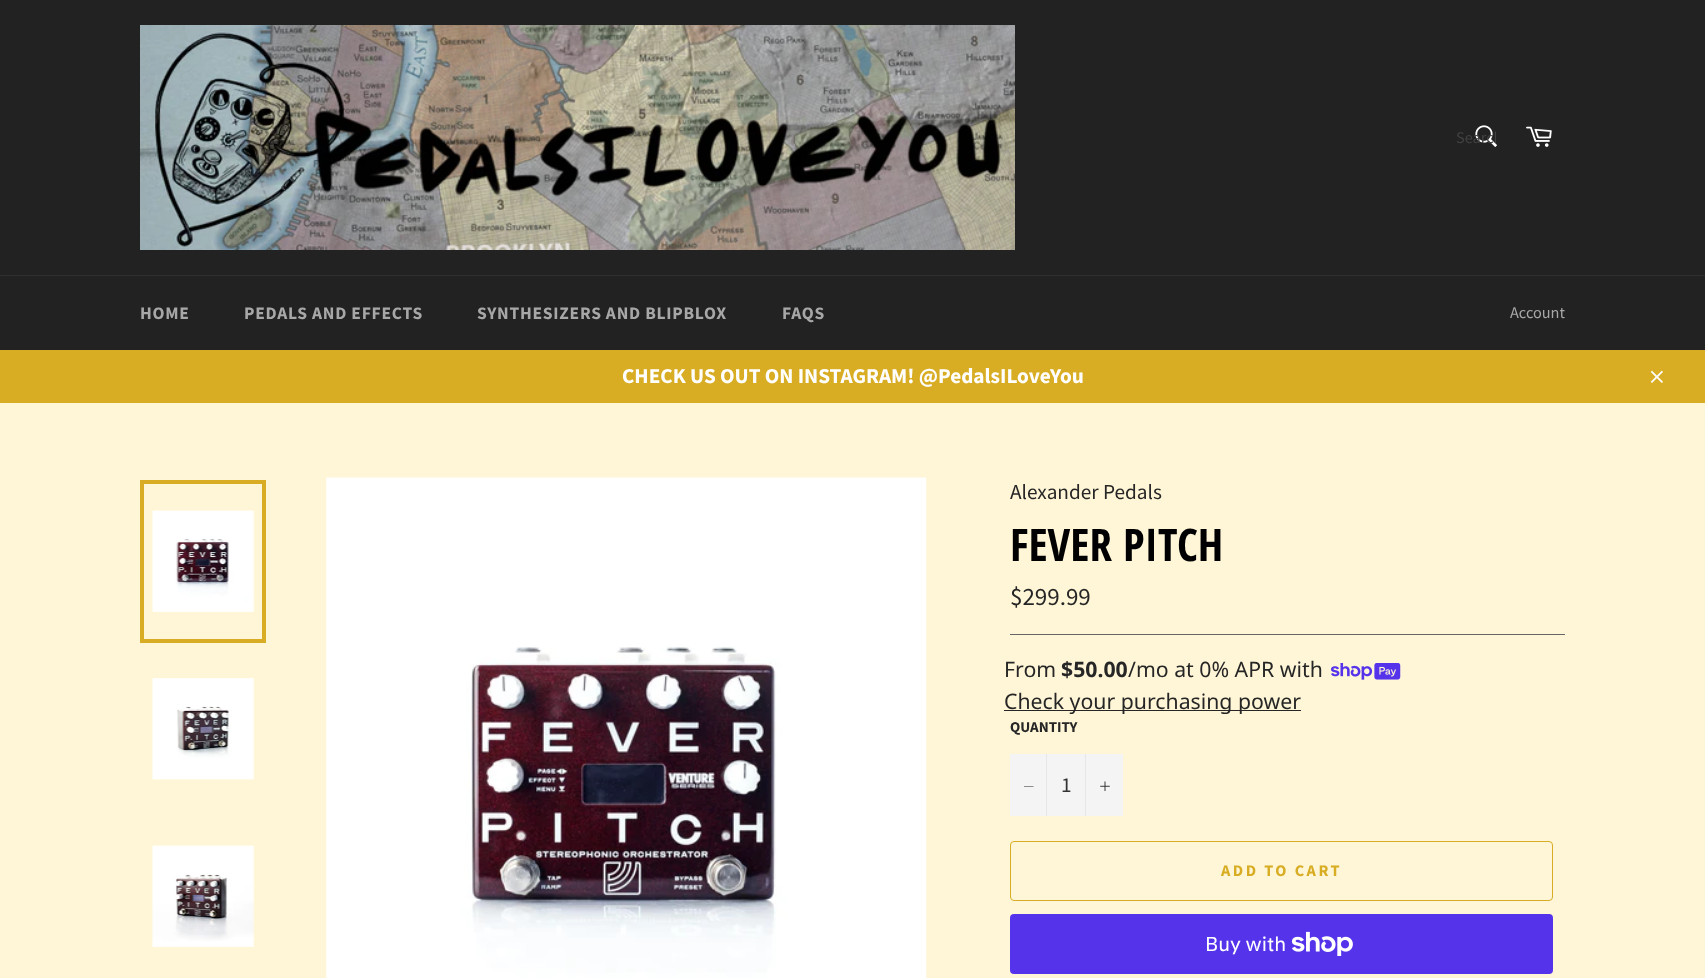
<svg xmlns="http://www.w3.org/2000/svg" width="1705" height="978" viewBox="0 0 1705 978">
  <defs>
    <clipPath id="clip1"><rect x="1456" y="128" width="40" height="21"/></clipPath>
  </defs>
  <rect width="100%" height="100%" fill="#222222"/>
  <image x="140" y="25" width="875" height="225" href="img1.png"/>
  <image x="1475" y="125" width="22" height="22" href="img2.png"/>
  <g clip-path="url(#clip1)">
    <text x="1456" y="143" font-family="Source Sans Pro" font-size="16.25" fill="#414141">Search</text>
  </g>
  <image x="1526" y="126" width="26" height="21" href="img3.png"/>
  <rect x="0" y="275" width="1705" height="1" fill="#2f2f2f"/>
  <text x="140" y="319" font-family="Source Sans Pro" font-size="17.5" font-weight="bold" letter-spacing="0.75" fill="#a7a7a7">HOME</text>
  <text x="244" y="319" font-family="Source Sans Pro" font-size="17.5" font-weight="bold" letter-spacing="0.75" fill="#a7a7a7">PEDALS AND EFFECTS</text>
  <text x="477" y="319" font-family="Source Sans Pro" font-size="17.5" font-weight="bold" letter-spacing="0.75" fill="#a7a7a7">SYNTHESIZERS AND BLIPBLOX</text>
  <text x="782" y="319" font-family="Source Sans Pro" font-size="17.5" font-weight="bold" letter-spacing="0.75" fill="#a7a7a7">FAQS</text>
  <text x="1510" y="318" font-family="Source Sans Pro" font-size="16.25" fill="#a7a7a7">Account</text>
  <rect x="0" y="350" width="1705" height="53" fill="#d8ad23"/>
  <text x="622" y="383" font-family="Source Sans Pro" font-size="21.25" font-weight="bold" fill="#ffffff">CHECK US OUT ON INSTAGRAM! @PedalsILoveYou</text>
  <image x="1650" y="370" width="13" height="13" href="img4.png"/>
  <rect x="0" y="403" width="1705" height="575" fill="#fff6d7"/>
  <image x="152" y="510" width="103" height="102" href="img5.png"/>
  <rect x="142" y="482" width="122" height="159" fill="none" stroke="#d8ad23" stroke-width="4"/>
  <image x="152" y="678" width="103" height="102" href="img6.png"/>
  <image x="152" y="845" width="103" height="102" href="img7.png"/>
  <image x="326" y="477" width="601" height="501" href="img8.png"/>
  <text x="1010" y="499" font-family="Source Sans Pro" font-size="21.25" fill="#262626">Alexander Pedals</text>
  <text x="1010" y="561" font-family="Open Sans Condensed" font-size="45" font-weight="bold" fill="#000000">FEVER PITCH</text>
  <text x="1010" y="605" font-family="Source Sans Pro" font-size="25" fill="#262626">$299.99</text>
  <rect x="1010" y="634" width="555" height="1" fill="#666666"/>
  <text x="1004" y="677" font-family="Noto Sans" font-size="21.25" fill="#262626">From</text>
  <text x="1061" y="677" font-family="Noto Sans" font-size="21.25" font-weight="bold" fill="#262626">$50.00</text>
  <text x="1128" y="677" font-family="Noto Sans" font-size="21.25" fill="#262626">/mo at 0% APR with</text>
  <image x="1331" y="663" width="70" height="17" href="img9.png"/>
  <rect x="1004" y="710" width="297" height="1" fill="#262626"/>
  <text x="1004" y="709" font-family="Noto Sans" font-size="21.25" fill="#262626">Check your purchasing power</text>
  <text x="1010" y="732" font-family="Source Sans Pro" font-size="15" font-weight="bold" fill="#262626">QUANTITY</text>
  <rect x="1010" y="754" width="113" height="62" fill="#f4f4f4"/>
  <rect x="1046" y="754" width="1" height="62" fill="#e7e7e7"/>
  <path d="M1033.5 786V786.5H1024V786Z" fill="#262626" fill-rule="evenodd"/>
  <text x="1061" y="792" font-family="Source Sans Pro" font-size="21.25" fill="#333333">1</text>
  <rect x="1085" y="754" width="1" height="62" fill="#e7e7e7"/>
  <image x="1100" y="781" width="10" height="10" href="img10.png"/>
  <rect x="1010.5" y="841.5" width="542" height="59" rx="3.5" fill="none" stroke="#d8ad23"/>
  <text x="1221" y="876" font-family="Source Sans Pro" font-size="16.25" font-weight="bold" letter-spacing="2.5" fill="#d8ad23">ADD TO CART</text>
  <rect x="1010" y="914" width="543" height="60" rx="4" fill="#5433eb"/>
  <text x="1205" y="951" font-family="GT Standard" font-size="20" fill="#ffffff">Buy with</text>
  <image x="1291" y="931" width="62" height="25" href="img11.png"/>
</svg>
